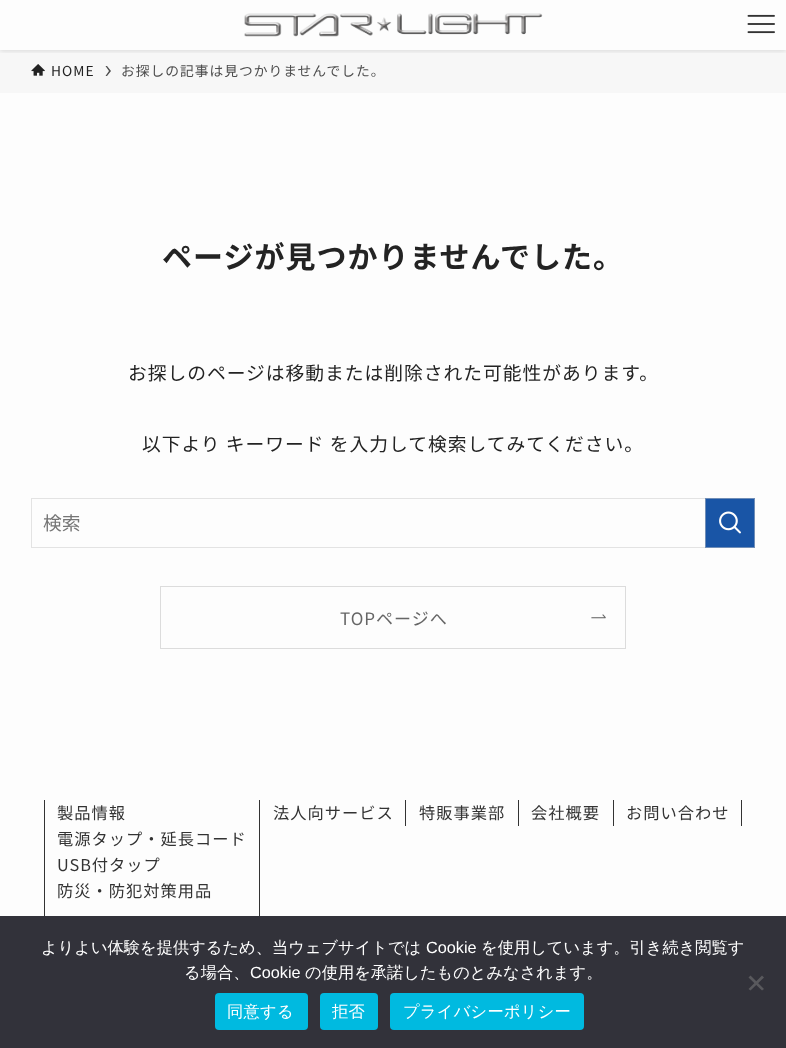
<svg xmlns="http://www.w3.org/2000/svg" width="786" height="1048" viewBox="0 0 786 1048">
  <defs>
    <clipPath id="clip1"><rect x="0" y="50" width="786" height="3"/></clipPath>
    <filter id="blur1" x="-50%" y="-200%" width="200%" height="500%"><feGaussianBlur stdDeviation="2.5"/></filter>
  </defs>
  <rect width="100%" height="100%" fill="#fdfdfd"/>
  <rect x="0" y="50" width="786" height="43" fill="#f7f7f7"/>
  <g clip-path="url(#clip1)">
    <rect x="0" y="1" width="786" height="50" fill="#000000" fill-opacity="0.12" filter="url(#blur1)"/>
  </g>
  <image x="244" y="13" width="299" height="24" href="img1.png"/>
  <image x="747" y="14" width="28" height="20" href="img2.png"/>
  <image x="31" y="64" width="14" height="12" href="img3.png"/>
  <text x="51" y="76" font-family="Noto Sans JP" font-size="13.75" letter-spacing="1" fill="#232323">HOME</text>
  <path d="M107 66H105.5L109 71L105.5 76H107L111 71Z" fill="#4d4d4d"/>
  <text x="121" y="76" font-family="Noto Sans JP" font-size="13.75" letter-spacing="1" fill="#4d4d4d">お探しの記事は見つかりませんでした。</text>
  <text x="162" y="268" font-family="Noto Sans JP" font-size="30" font-weight="bold" letter-spacing="1" fill="#232323">ページが見つかりませんでした。</text>
  <text x="128" y="380" font-family="Noto Sans JP" font-size="18.75" letter-spacing="1" fill="#232323">お探しのページは移動または削除された可能性があります。</text>
  <text x="142" y="451" font-family="Noto Sans JP" font-size="18.75" letter-spacing="1" fill="#232323">以下より キーワード を入力して検索してみてください。</text>
  <rect x="31.5" y="498.5" width="723" height="49" fill="none" stroke="#e3e3e3"/>
  <text x="43" y="530" font-family="Noto Sans JP" font-size="18.75" fill="#757575">検索</text>
  <rect x="705.5" y="498.5" width="49" height="49" fill="#1955a6" stroke="#708eb7"/>
  <image x="719" y="511" width="22" height="23" href="img4.png"/>
  <rect x="160.5" y="586.5" width="465" height="62" fill="none" stroke="#dcdcdc"/>
  <text x="340" y="625" font-family="Noto Sans JP" font-size="17" letter-spacing="1" fill="#666666">TOPページへ</text>
  <image x="591" y="614" width="15" height="5" href="img5.png"/>
  <rect x="259" y="800" width="1" height="116" fill="#333333"/>
  <rect x="44" y="800" width="1" height="116" fill="#333333"/>
  <text x="57" y="819" font-family="Noto Sans JP" font-size="16.25" letter-spacing="1" fill="#333333">製品情報</text>
  <text x="57" y="845" font-family="Noto Sans JP" font-size="16.25" letter-spacing="1" fill="#333333">電源タップ・延長コード</text>
  <text x="57" y="871" font-family="Noto Sans JP" font-size="16.25" letter-spacing="1" fill="#333333">USB付タップ</text>
  <text x="57" y="897" font-family="Noto Sans JP" font-size="16.25" letter-spacing="1" fill="#333333">防災・防犯対策用品</text>
  <rect x="405" y="800" width="1" height="26" fill="#333333"/>
  <text x="273" y="819" font-family="Noto Sans JP" font-size="16.25" letter-spacing="1" fill="#333333">法人向サービス</text>
  <rect x="518" y="800" width="1" height="26" fill="#333333"/>
  <text x="419" y="819" font-family="Noto Sans JP" font-size="16.25" letter-spacing="1" fill="#333333">特販事業部</text>
  <rect x="613" y="800" width="1" height="26" fill="#333333"/>
  <text x="531" y="819" font-family="Noto Sans JP" font-size="16.25" letter-spacing="1" fill="#333333">会社概要</text>
  <rect x="741" y="800" width="1" height="26" fill="#333333"/>
  <text x="626" y="819" font-family="Noto Sans JP" font-size="16.25" letter-spacing="1" fill="#333333">お問い合わせ</text>
  <rect x="0" y="916" width="786" height="132" fill="#32323a"/>
  <text x="41" y="953" font-family="WenQuanYi Zen Hei" font-size="16.25" font-weight="500" fill="#ffffff">よりよい体験を提供するため、当ウェブサイトでは</text>
  <text x="426" y="953" font-family="Liberation Sans" font-size="16.25" fill="#ffffff">Cookie</text>
  <text x="481" y="953" font-family="WenQuanYi Zen Hei" font-size="16.25" font-weight="500" fill="#ffffff">を使用しています。引き続き閲覧す</text>
  <text x="184" y="978" font-family="WenQuanYi Zen Hei" font-size="16.25" font-weight="500" fill="#ffffff">る場合、</text>
  <text x="250" y="978" font-family="Liberation Sans" font-size="16.25" fill="#ffffff">Cookie</text>
  <text x="305" y="978" font-family="WenQuanYi Zen Hei" font-size="16.25" font-weight="500" fill="#ffffff">の使用を承諾したものとみなされます。</text>
  <path d="M762 975.5L764 977.5L750.5 990.5L748.5 989Z" fill="#59595d"/>
  <path d="M748.5 977.5L750.5 975.5L764 989L762 990.5Z" fill="#59595d"/>
  <rect x="215" y="993" width="93" height="37" rx="4" fill="#00bae0"/>
  <text x="227" y="1017" font-family="WenQuanYi Zen Hei" font-size="16.25" font-weight="500" letter-spacing="0.25" fill="#ffffff">同意する</text>
  <rect x="320" y="993" width="58" height="37" rx="4" fill="#00bae0"/>
  <text x="332" y="1017" font-family="WenQuanYi Zen Hei" font-size="16.25" font-weight="500" letter-spacing="0.25" fill="#ffffff">拒否</text>
  <rect x="390" y="993" width="194" height="37" rx="4" fill="#00bae0"/>
  <text x="403" y="1017" font-family="WenQuanYi Zen Hei" font-size="16.25" font-weight="500" letter-spacing="0.25" fill="#ffffff">プライバシーポリシー</text>
</svg>
